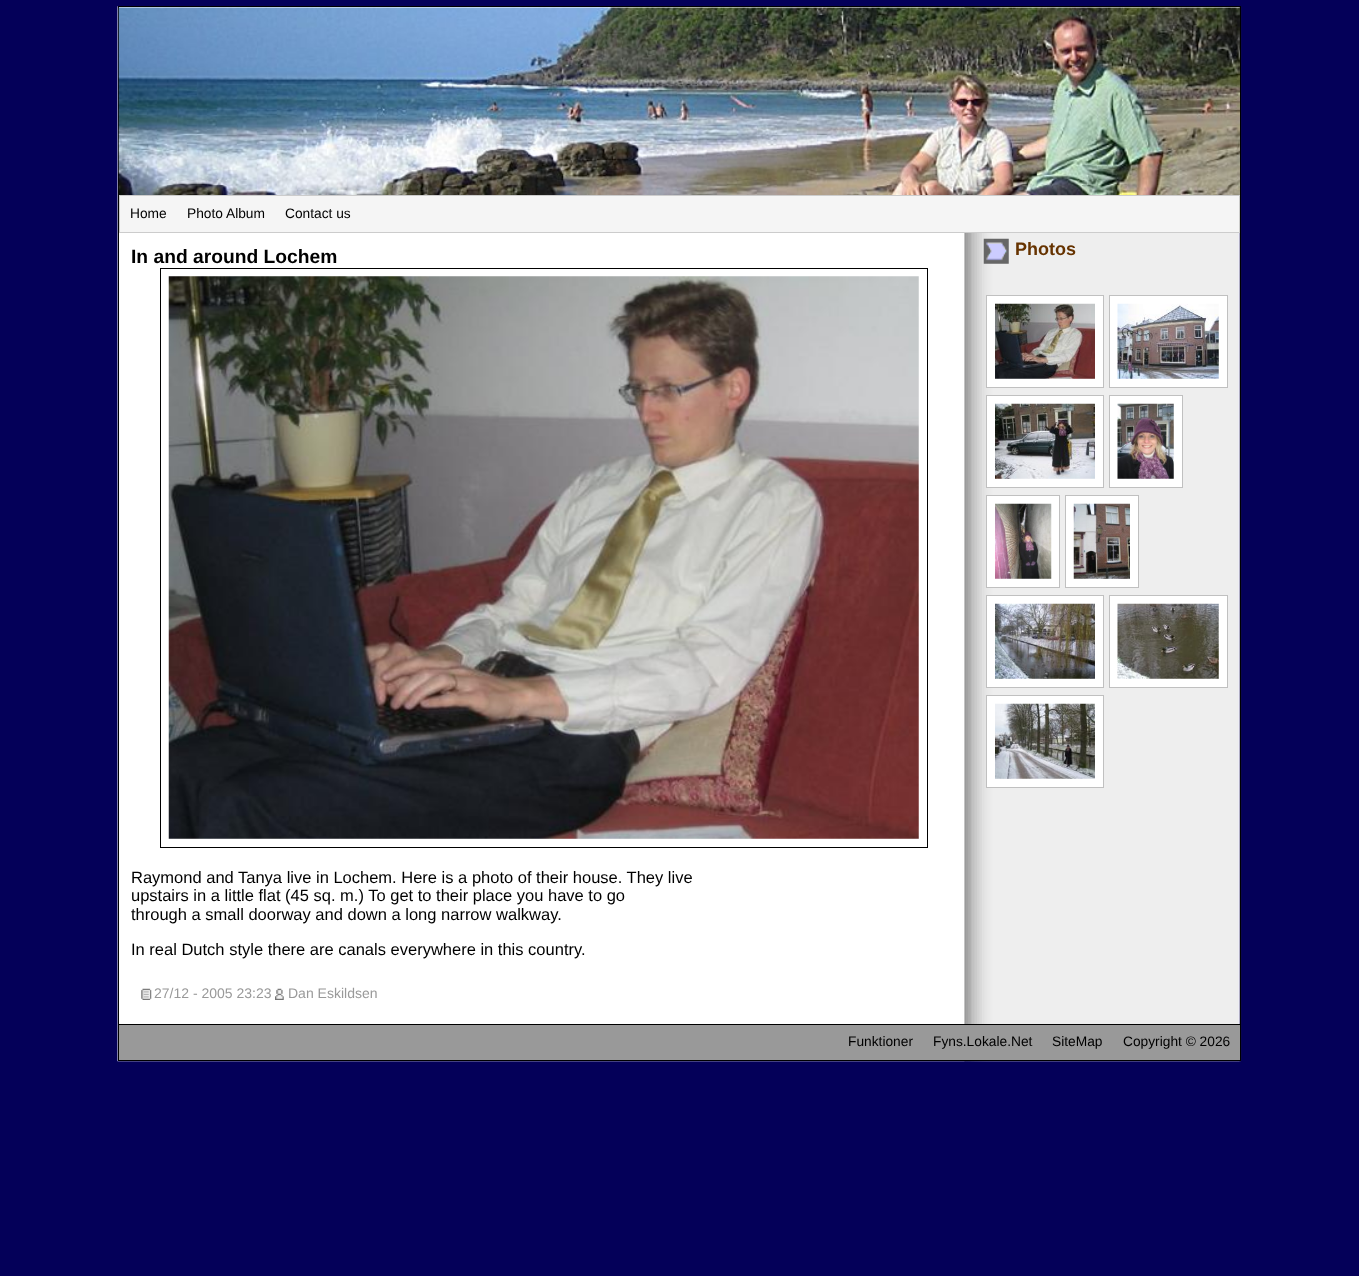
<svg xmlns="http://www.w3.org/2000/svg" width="1359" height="1276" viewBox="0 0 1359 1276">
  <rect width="100%" height="100%" fill="#040059"/>
  <image x="117" y="6" width="1125" height="1056" href="img1.png"/>
  <rect x="118.5" y="6.5" width="1122" height="1054" fill="none" stroke="#000000"/>
  <image x="118" y="7" width="1122" height="188" href="img2.png"/>
  <rect x="119.5" y="195.5" width="1120" height="37" fill="#f5f5f5" stroke="#cccccc"/>
  <text x="130" y="218" font-family="Liberation Sans" font-size="13.75" fill="#000000">Home</text>
  <text x="187" y="218" font-family="Liberation Sans" font-size="13.75" fill="#000000">Photo Album</text>
  <text x="285" y="218" font-family="Liberation Sans" font-size="13.75" fill="#000000">Contact us</text>
  <text x="131" y="263" font-family="Liberation Sans" font-size="19.25" font-weight="bold" fill="#000000">In and around Lochem</text>
  <rect x="160.5" y="268.5" width="767" height="579" fill="none" stroke="#000000"/>
  <image x="168" y="276" width="751" height="563" href="img3.png"/>
  <text x="131" y="883" font-family="Liberation Sans" font-size="16.5" fill="#000000">Raymond and Tanya live in Lochem. Here is a photo of their house. They live</text>
  <text x="131" y="901" font-family="Liberation Sans" font-size="16.5" fill="#000000">upstairs in a little flat (45 sq. m.) To get to their place you have to go</text>
  <text x="131" y="920" font-family="Liberation Sans" font-size="16.5" fill="#000000">through a small doorway and down a long narrow walkway.</text>
  <text x="131" y="955" font-family="Liberation Sans" font-size="16.5" fill="#000000">In real Dutch style there are canals everywhere in this country.</text>
  <image x="141" y="988" width="11" height="12" href="img4.png"/>
  <text x="154" y="998" font-family="Liberation Sans" font-size="14" fill="#999999">27/12 - 2005 23:23</text>
  <image x="275" y="988" width="9" height="12" href="img5.png"/>
  <text x="288" y="998" font-family="Liberation Sans" font-size="14" fill="#999999">Dan Eskildsen</text>
  <image x="983" y="238" width="26" height="26" href="img6.png"/>
  <text x="1015" y="255" font-family="Liberation Sans" font-size="18" font-weight="bold" fill="#663300">Photos</text>
  <rect x="986.5" y="295.5" width="117" height="92" fill="#ffffff" stroke="#c0c0c0"/>
  <image x="995" y="303" width="100" height="76" href="img7.png"/>
  <rect x="1109.5" y="295.5" width="118" height="92" fill="#ffffff" stroke="#c0c0c0"/>
  <image x="1117" y="303" width="102" height="76" href="img8.png"/>
  <rect x="986.5" y="395.5" width="117" height="92" fill="#ffffff" stroke="#c0c0c0"/>
  <image x="995" y="403" width="100" height="76" href="img9.png"/>
  <rect x="1109.5" y="395.5" width="73" height="92" fill="#ffffff" stroke="#c0c0c0"/>
  <image x="1117" y="403" width="57" height="76" href="img10.png"/>
  <rect x="986.5" y="495.5" width="73" height="92" fill="#ffffff" stroke="#c0c0c0"/>
  <image x="995" y="503" width="57" height="76" href="img11.png"/>
  <rect x="1065.5" y="495.5" width="73" height="92" fill="#ffffff" stroke="#c0c0c0"/>
  <image x="1073" y="503" width="57" height="76" href="img12.png"/>
  <rect x="986.5" y="595.5" width="117" height="92" fill="#ffffff" stroke="#c0c0c0"/>
  <image x="995" y="603" width="100" height="76" href="img13.png"/>
  <rect x="1109.5" y="595.5" width="118" height="92" fill="#ffffff" stroke="#c0c0c0"/>
  <image x="1117" y="603" width="102" height="76" href="img14.png"/>
  <rect x="986.5" y="695.5" width="117" height="92" fill="#ffffff" stroke="#c0c0c0"/>
  <image x="995" y="703" width="100" height="76" href="img15.png"/>
  <rect x="119" y="1024" width="1121" height="1" fill="#000000"/>
  <rect x="119" y="1025" width="1121" height="35" fill="#999999"/>
  <text x="848" y="1046" font-family="Liberation Sans" font-size="13.75" fill="#000000">Funktioner</text>
  <text x="933" y="1046" font-family="Liberation Sans" font-size="13.75" fill="#000000">Fyns.Lokale.Net</text>
  <text x="1052" y="1046" font-family="Liberation Sans" font-size="13.75" fill="#000000">SiteMap</text>
  <text x="1123" y="1046" font-family="Liberation Sans" font-size="13.75" fill="#000000">Copyright © 2026</text>
</svg>
